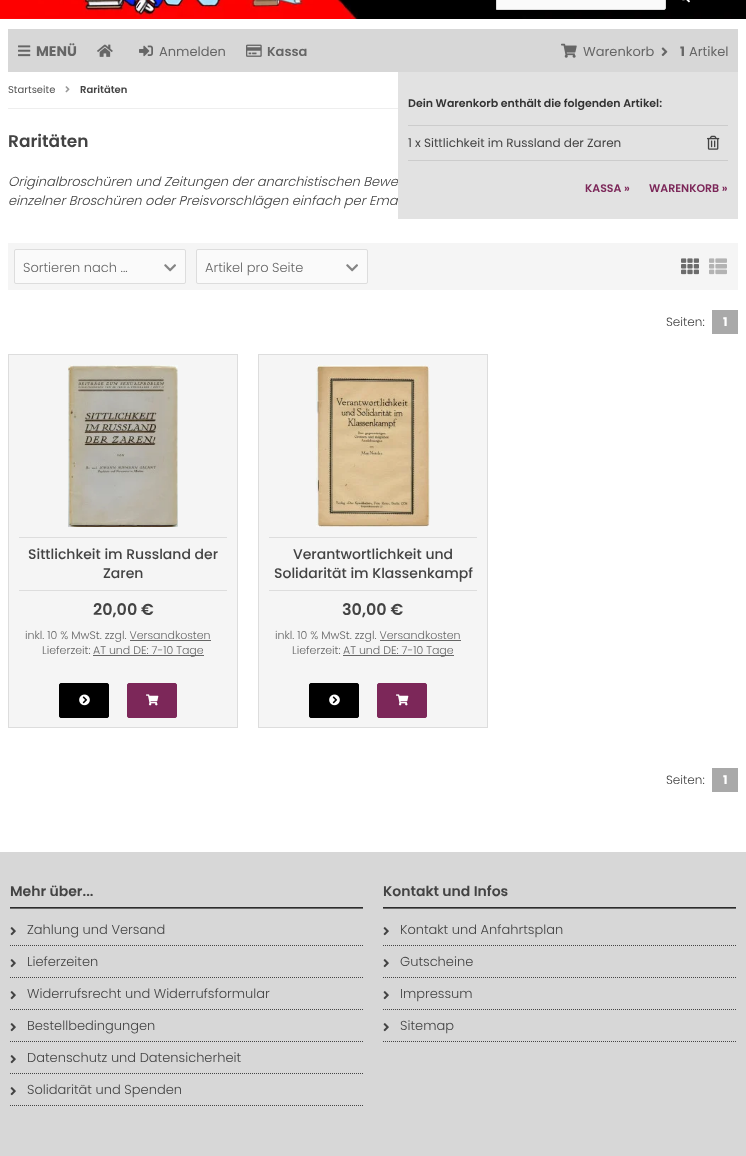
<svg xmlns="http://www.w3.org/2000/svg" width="746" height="1156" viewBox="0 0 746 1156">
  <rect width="100%" height="100%" fill="#ffffff"/>
  <image x="0" y="0" width="746" height="19" href="img2.png"/>
  <path d="M496.5-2.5H664C665-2.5 665.5-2 665.5-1V8C665.5 9 665 9.5 664 9.5H496.5Z" fill="#fafafa" stroke="#dddddd"/>
  <image x="682" y="0" width="8" height="3" href="img1.png"/>
  <rect x="8" y="29" width="730" height="43" fill="#d7d7d7"/>
  <image x="18" y="45" width="13" height="12" href="img3.png"/>
  <text x="36" y="56" font-family="Poppins" font-size="14" font-weight="bold" fill="#666666">MENÜ</text>
  <image x="97" y="44" width="16" height="13" href="img4.png"/>
  <image x="139" y="45" width="14" height="12" href="img5.png"/>
  <text x="159" y="56" font-family="Poppins" font-size="13" fill="#666666">Anmelden</text>
  <image x="246" y="44" width="16" height="13" href="img6.png"/>
  <text x="267" y="56" font-family="Poppins" font-size="13" font-weight="600" fill="#666666">Kassa</text>
  <image x="561" y="43" width="16" height="15" href="img7.png"/>
  <text x="583" y="56" font-family="Poppins" font-size="13" fill="#666666">Warenkorb</text>
  <image x="661" y="47" width="7" height="9" href="img8.png"/>
  <text x="680" y="56" font-family="Poppins" font-size="13" font-weight="bold" fill="#666666">1</text>
  <text x="689" y="56" font-family="Poppins" font-size="13" fill="#666666">Artikel</text>
  <text x="8" y="186" font-family="Poppins" font-size="13" font-weight="300" font-style="italic" fill="#434343">Originalbroschüren und Zeitungen der anarchistischen Bewe</text>
  <text x="8" y="205" font-family="Poppins" font-size="13" font-weight="300" font-style="italic" fill="#434343">einzelner Broschüren oder Preisvorschlägen einfach per Ema</text>
  <rect x="398" y="72" width="340" height="147" fill="#e2e2e2"/>
  <text x="408" y="107" font-family="Poppins" font-size="11" font-weight="600" fill="#333333">Dein Warenkorb enthält die folgenden Artikel:</text>
  <rect x="408" y="125" width="320" height="1" fill="#cccccc"/>
  <text x="408" y="147" font-family="Poppins" font-size="12" fill="#434343">1 x Sittlichkeit im Russland der Zaren</text>
  <image x="707" y="135" width="13" height="15" href="img9.png"/>
  <rect x="408" y="160" width="320" height="1" fill="#cccccc"/>
  <text x="585" y="192" font-family="Poppins" font-size="11" font-weight="600" fill="#7c2759">KASSA »</text>
  <text x="649" y="192" font-family="Poppins" font-size="11" font-weight="600" fill="#7c2759">WARENKORB »</text>
  <rect x="8" y="108" width="390" height="1" fill="#eeeeee"/>
  <text x="8" y="93" font-family="Poppins" font-size="10" fill="#555555">Startseite</text>
  <image x="65" y="86" width="5" height="7" href="img10.png"/>
  <text x="80" y="93" font-family="Poppins" font-size="10" font-weight="600" fill="#434343">Raritäten</text>
  <text x="8" y="147" font-family="Poppins" font-size="17" font-weight="600" fill="#434343">Raritäten</text>
  <rect x="8" y="243" width="730" height="47" fill="#f5f5f5"/>
  <rect x="14.5" y="249.5" width="171" height="34" rx="1.5" fill="#fafafa" stroke="#dddddd"/>
  <text x="23" y="272" font-family="Poppins" font-size="13" font-weight="300" fill="#666666">Sortieren nach ...</text>
  <image x="164" y="264" width="12" height="8" href="img11.png"/>
  <rect x="196.5" y="249.5" width="171" height="34" rx="1.5" fill="#fafafa" stroke="#dddddd"/>
  <text x="205" y="272" font-family="Poppins" font-size="13" font-weight="300" fill="#666666">Artikel pro Seite</text>
  <image x="346" y="264" width="12" height="8" href="img11.png"/>
  <image x="681" y="258" width="18" height="17" href="img12.png"/>
  <image x="709" y="258" width="18" height="17" href="img13.png"/>
  <text x="666" y="326" font-family="Poppins" font-size="12" font-weight="300" fill="#434343">Seiten:</text>
  <rect x="712" y="310" width="26" height="24" fill="#a9a9a9"/>
  <text x="723" y="326" font-family="Poppins" font-size="12" font-weight="bold" fill="#ffffff">1</text>
  <rect x="8.5" y="354.5" width="229" height="373" fill="#f5f5f5" stroke="#dddddd"/>
  <image x="68" y="365" width="110" height="162" href="img14.png"/>
  <rect x="19" y="537" width="208" height="1" fill="#dddddd"/>
  <rect x="19" y="590" width="208" height="1" fill="#dddddd"/>
  <text x="28" y="559" font-family="Poppins" font-size="14" font-weight="500" fill="#434343">Sittlichkeit im Russland der</text>
  <text x="103" y="578" font-family="Poppins" font-size="14" font-weight="500" fill="#434343">Zaren</text>
  <text x="93" y="615" font-family="Poppins" font-size="16" font-weight="600" fill="#434343">20,00 €</text>
  <text x="25" y="639" font-family="Poppins" font-size="11" font-weight="300" fill="#666666">inkl. 10 % MwSt. zzgl. Versandkosten</text>
  <rect x="130" y="640" width="81" height="1" fill="#666666"/>
  <text x="42" y="654" font-family="Poppins" font-size="11" font-weight="300" fill="#666666">Lieferzeit:</text>
  <rect x="93" y="655" width="111" height="1" fill="#666666"/>
  <text x="93" y="654" font-family="Poppins" font-size="11" font-weight="300" fill="#666666">AT und DE: 7-10 Tage</text>
  <rect x="59.5" y="683.5" width="49" height="34" rx="1.5" fill="#000000" stroke="#000000"/>
  <image x="79" y="694" width="11" height="12" href="img15.png"/>
  <rect x="127.5" y="683.5" width="49" height="34" rx="1.5" fill="#7c2759" stroke="#7c2759"/>
  <image x="146" y="694" width="13" height="12" href="img16.png"/>
  <rect x="258.5" y="354.5" width="229" height="373" fill="#f5f5f5" stroke="#dddddd"/>
  <image x="316" y="365" width="114" height="162" href="img17.png"/>
  <rect x="269" y="537" width="208" height="1" fill="#dddddd"/>
  <rect x="269" y="590" width="208" height="1" fill="#dddddd"/>
  <text x="293" y="559" font-family="Poppins" font-size="14" font-weight="500" fill="#434343">Verantwortlichkeit und</text>
  <text x="274" y="578" font-family="Poppins" font-size="14" font-weight="500" fill="#434343">Solidarität im Klassenkampf</text>
  <text x="342" y="615" font-family="Poppins" font-size="16" font-weight="600" fill="#434343">30,00 €</text>
  <text x="275" y="639" font-family="Poppins" font-size="11" font-weight="300" fill="#666666">inkl. 10 % MwSt. zzgl. Versandkosten</text>
  <rect x="380" y="640" width="81" height="1" fill="#666666"/>
  <text x="292" y="654" font-family="Poppins" font-size="11" font-weight="300" fill="#666666">Lieferzeit:</text>
  <rect x="343" y="655" width="111" height="1" fill="#666666"/>
  <text x="343" y="654" font-family="Poppins" font-size="11" font-weight="300" fill="#666666">AT und DE: 7-10 Tage</text>
  <rect x="309.5" y="683.5" width="49" height="34" rx="1.5" fill="#000000" stroke="#000000"/>
  <image x="329" y="694" width="11" height="12" href="img15.png"/>
  <rect x="377.5" y="683.5" width="49" height="34" rx="1.5" fill="#7c2759" stroke="#7c2759"/>
  <image x="396" y="694" width="13" height="12" href="img16.png"/>
  <text x="666" y="784" font-family="Poppins" font-size="12" font-weight="300" fill="#434343">Seiten:</text>
  <rect x="712" y="768" width="26" height="24" fill="#a9a9a9"/>
  <text x="723" y="784" font-family="Poppins" font-size="12" font-weight="bold" fill="#ffffff">1</text>
  <rect x="0" y="852" width="746" height="304" fill="#d7d7d7"/>
  <text x="10" y="896" font-family="Poppins" font-size="14" font-weight="600" fill="#434343">Mehr über...</text>
  <rect x="10" y="908" width="353" height="1" fill="#696969"/>
  <rect x="10" y="907" width="353" height="1" fill="#2c2c2c"/>
  <path d="M10 945.5H363" fill="none" stroke="#444444" stroke-dasharray="1 1"/>
  <image x="10" y="927" width="6" height="9" href="img18.png"/>
  <text x="27" y="934" font-family="Poppins" font-size="13" font-weight="300" fill="#434343">Zahlung und Versand</text>
  <path d="M10 977.5H363" fill="none" stroke="#444444" stroke-dasharray="1 1"/>
  <image x="10" y="959" width="6" height="9" href="img18.png"/>
  <text x="27" y="966" font-family="Poppins" font-size="13" font-weight="300" fill="#434343">Lieferzeiten</text>
  <path d="M10 1009.5H363" fill="none" stroke="#444444" stroke-dasharray="1 1"/>
  <image x="10" y="991" width="6" height="9" href="img18.png"/>
  <text x="27" y="998" font-family="Poppins" font-size="13" font-weight="300" fill="#434343">Widerrufsrecht und Widerrufsformular</text>
  <path d="M10 1041.5H363" fill="none" stroke="#444444" stroke-dasharray="1 1"/>
  <image x="10" y="1023" width="6" height="9" href="img18.png"/>
  <text x="27" y="1030" font-family="Poppins" font-size="13" font-weight="300" fill="#434343">Bestellbedingungen</text>
  <path d="M10 1073.5H363" fill="none" stroke="#444444" stroke-dasharray="1 1"/>
  <image x="10" y="1055" width="6" height="9" href="img18.png"/>
  <text x="27" y="1062" font-family="Poppins" font-size="13" font-weight="300" fill="#434343">Datenschutz und Datensicherheit</text>
  <path d="M10 1105.5H363" fill="none" stroke="#444444" stroke-dasharray="1 1"/>
  <image x="10" y="1087" width="6" height="9" href="img18.png"/>
  <text x="27" y="1094" font-family="Poppins" font-size="13" font-weight="300" fill="#434343">Solidarität und Spenden</text>
  <text x="383" y="896" font-family="Poppins" font-size="14" font-weight="600" fill="#434343">Kontakt und Infos</text>
  <rect x="383" y="908" width="353" height="1" fill="#696969"/>
  <rect x="383" y="907" width="353" height="1" fill="#2c2c2c"/>
  <path d="M383 945.5H736" fill="none" stroke="#444444" stroke-dasharray="1 1"/>
  <image x="383" y="927" width="6" height="9" href="img18.png"/>
  <text x="400" y="934" font-family="Poppins" font-size="13" font-weight="300" fill="#434343">Kontakt und Anfahrtsplan</text>
  <path d="M383 977.5H736" fill="none" stroke="#444444" stroke-dasharray="1 1"/>
  <image x="383" y="959" width="6" height="9" href="img18.png"/>
  <text x="400" y="966" font-family="Poppins" font-size="13" font-weight="300" fill="#434343">Gutscheine</text>
  <path d="M383 1009.5H736" fill="none" stroke="#444444" stroke-dasharray="1 1"/>
  <image x="383" y="991" width="6" height="9" href="img18.png"/>
  <text x="400" y="998" font-family="Poppins" font-size="13" font-weight="300" fill="#434343">Impressum</text>
  <path d="M383 1041.5H736" fill="none" stroke="#444444" stroke-dasharray="1 1"/>
  <image x="383" y="1023" width="6" height="9" href="img18.png"/>
  <text x="400" y="1030" font-family="Poppins" font-size="13" font-weight="300" fill="#434343">Sitemap</text>
</svg>
